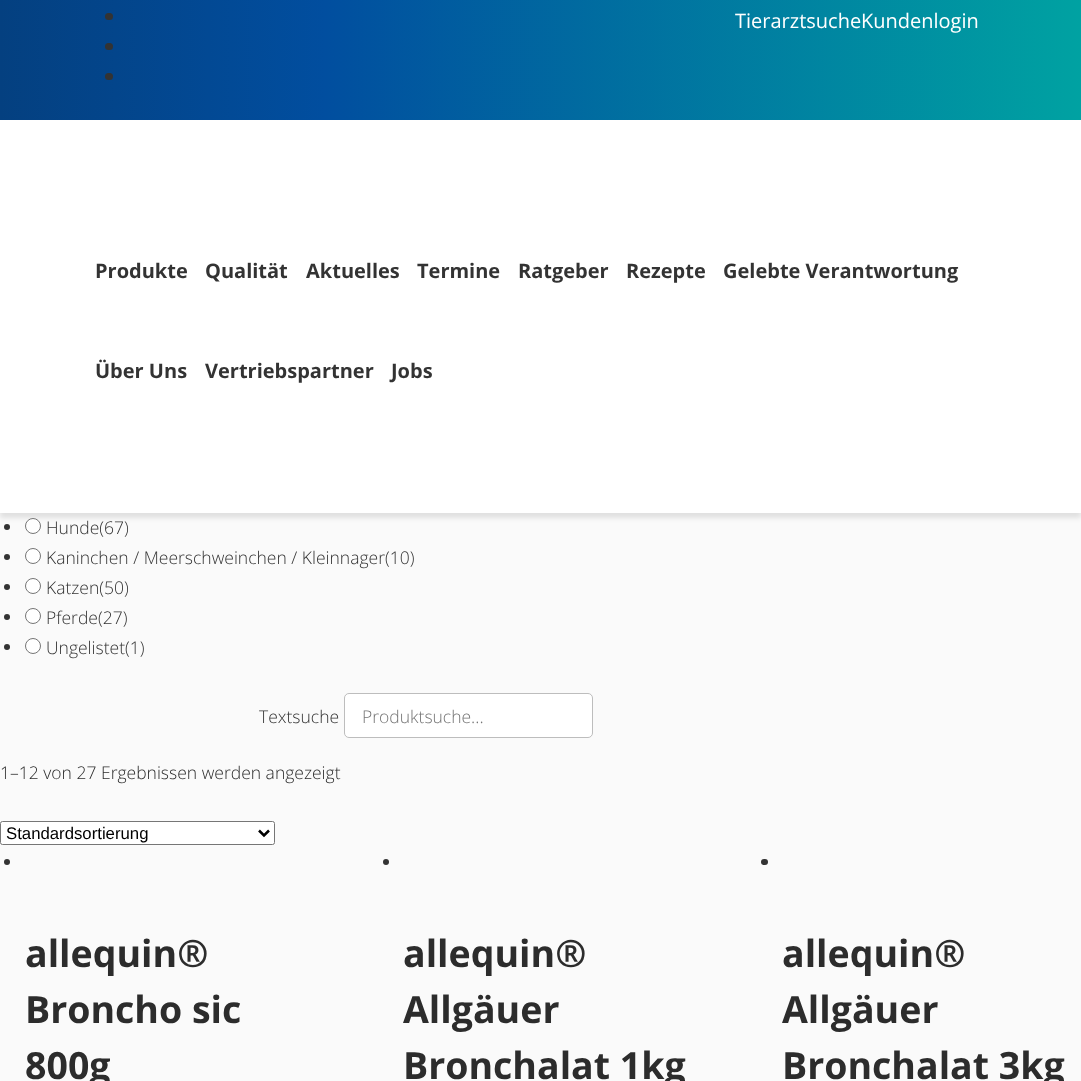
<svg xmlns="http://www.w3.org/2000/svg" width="1081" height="1081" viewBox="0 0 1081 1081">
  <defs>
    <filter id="blur1" x="-50%" y="-200%" width="200%" height="500%"><feGaussianBlur stdDeviation="2.5"/></filter>
    <linearGradient id="g1" gradientUnits="userSpaceOnUse" x1="0" y1="60" x2="1081" y2="60"><stop offset="0" stop-color="#044080"/><stop offset="0.3" stop-color="#014e9f"/><stop offset="1" stop-color="#00a2a2"/></linearGradient>
  </defs>
  <rect width="100%" height="100%" fill="#fafafa"/>
  <rect x="0" y="5" width="1081" height="513" fill="#000000" fill-opacity="0.1" filter="url(#blur1)"/>
  <rect x="0" y="120" width="1081" height="393" fill="#ffffff"/>
  <rect x="0" y="0" width="1081" height="120" fill="url(#g1)"/>
  <rect x="105" y="13" width="8" height="7" rx="3.5" fill="#333333"/>
  <rect x="105" y="43" width="8" height="7" rx="3.5" fill="#333333"/>
  <rect x="105" y="73" width="8" height="7" rx="3.5" fill="#333333"/>
  <text x="735" y="28" font-family="Open Sans" font-size="20" fill="#ffffff">Tierarztsuche</text>
  <text x="861" y="28" font-family="Open Sans" font-size="20" fill="#ffffff">Kundenlogin</text>
  <text x="95" y="278" font-family="Open Sans" font-size="20" font-weight="bold" fill="#333333">Produkte</text>
  <text x="205" y="278" font-family="Open Sans" font-size="20" font-weight="bold" fill="#333333">Qualität</text>
  <text x="306" y="278" font-family="Open Sans" font-size="20" font-weight="bold" fill="#333333">Aktuelles</text>
  <text x="417" y="278" font-family="Open Sans" font-size="20" font-weight="bold" fill="#333333">Termine</text>
  <text x="518" y="278" font-family="Open Sans" font-size="20" font-weight="bold" fill="#333333">Ratgeber</text>
  <text x="626" y="278" font-family="Open Sans" font-size="20" font-weight="bold" fill="#333333">Rezepte</text>
  <text x="723" y="278" font-family="Open Sans" font-size="20" font-weight="bold" fill="#333333">Gelebte Verantwortung</text>
  <text x="95" y="378" font-family="Open Sans" font-size="20" font-weight="bold" fill="#333333">Über Uns</text>
  <text x="205" y="378" font-family="Open Sans" font-size="20" font-weight="bold" fill="#333333">Vertriebspartner</text>
  <text x="391" y="378" font-family="Open Sans" font-size="20" font-weight="bold" fill="#333333">Jobs</text>
  <circle cx="7" cy="527" r="3" fill="#333333"/>
  <circle cx="33" cy="526" r="7.5" fill="#ffffff" stroke="#767676"/>
  <text x="46" y="534" font-family="Open Sans" font-size="17.5" font-weight="300" fill="#333333">Hunde(67)</text>
  <circle cx="7" cy="557" r="3" fill="#333333"/>
  <circle cx="33" cy="556" r="7.5" fill="#ffffff" stroke="#767676"/>
  <text x="46" y="564" font-family="Open Sans" font-size="17.5" font-weight="300" fill="#333333">Kaninchen / Meerschweinchen / Kleinnager(10)</text>
  <circle cx="7" cy="587" r="3" fill="#333333"/>
  <circle cx="33" cy="586" r="7.5" fill="#ffffff" stroke="#767676"/>
  <text x="46" y="594" font-family="Open Sans" font-size="17.5" font-weight="300" fill="#333333">Katzen(50)</text>
  <circle cx="7" cy="617" r="3" fill="#333333"/>
  <circle cx="33" cy="616" r="7.5" fill="#ffffff" stroke="#767676"/>
  <text x="46" y="624" font-family="Open Sans" font-size="17.5" font-weight="300" fill="#333333">Pferde(27)</text>
  <circle cx="7" cy="647" r="3" fill="#333333"/>
  <circle cx="33" cy="646" r="7.5" fill="#ffffff" stroke="#767676"/>
  <text x="46" y="654" font-family="Open Sans" font-size="17.5" font-weight="300" fill="#333333">Ungelistet(1)</text>
  <text x="259" y="723" font-family="Open Sans" font-size="17.5" font-weight="300" fill="#333333">Textsuche</text>
  <rect x="344.5" y="693.5" width="248" height="44" rx="4.5" fill="#ffffff" stroke="#bdbdbd"/>
  <text x="362" y="723" font-family="Open Sans" font-size="17.5" font-weight="300" fill="#757575">Produktsuche...</text>
  <text x="0" y="779" font-family="Open Sans" font-size="17.5" font-weight="300" fill="#2c2c2c">1–12 von 27 Ergebnissen werden angezeigt</text>
  <rect x="0.5" y="821.5" width="274" height="23" rx="2" fill="#ffffff" stroke="#767676"/>
  <path d="M259 830.5L264 835.5L269 830.5" fill="none" stroke="#000000" stroke-width="2.5"/>
  <text x="6" y="839" font-family="Liberation Sans" font-size="16.75" fill="#000000">Standardsortierung</text>
  <circle cx="7" cy="862" r="3" fill="#333333"/>
  <text x="25" y="967" font-family="Open Sans" font-size="37.5" font-weight="bold" fill="#2c2c2c">allequin®</text>
  <text x="25" y="1023" font-family="Open Sans" font-size="37.5" font-weight="bold" fill="#2c2c2c">Broncho sic</text>
  <text x="25" y="1079" font-family="Open Sans" font-size="37.5" font-weight="bold" fill="#2c2c2c">800g</text>
  <circle cx="386" cy="862" r="3" fill="#333333"/>
  <text x="403" y="967" font-family="Open Sans" font-size="37.5" font-weight="bold" fill="#2c2c2c">allequin®</text>
  <text x="403" y="1023" font-family="Open Sans" font-size="37.5" font-weight="bold" fill="#2c2c2c">Allgäuer</text>
  <text x="403" y="1079" font-family="Open Sans" font-size="37.5" font-weight="bold" fill="#2c2c2c">Bronchalat 1kg</text>
  <rect x="761" y="859" width="7" height="6" rx="3" fill="#333333"/>
  <text x="782" y="967" font-family="Open Sans" font-size="37.5" font-weight="bold" fill="#2c2c2c">allequin®</text>
  <text x="782" y="1023" font-family="Open Sans" font-size="37.5" font-weight="bold" fill="#2c2c2c">Allgäuer</text>
  <text x="782" y="1079" font-family="Open Sans" font-size="37.5" font-weight="bold" fill="#2c2c2c">Bronchalat 3kg</text>
</svg>
